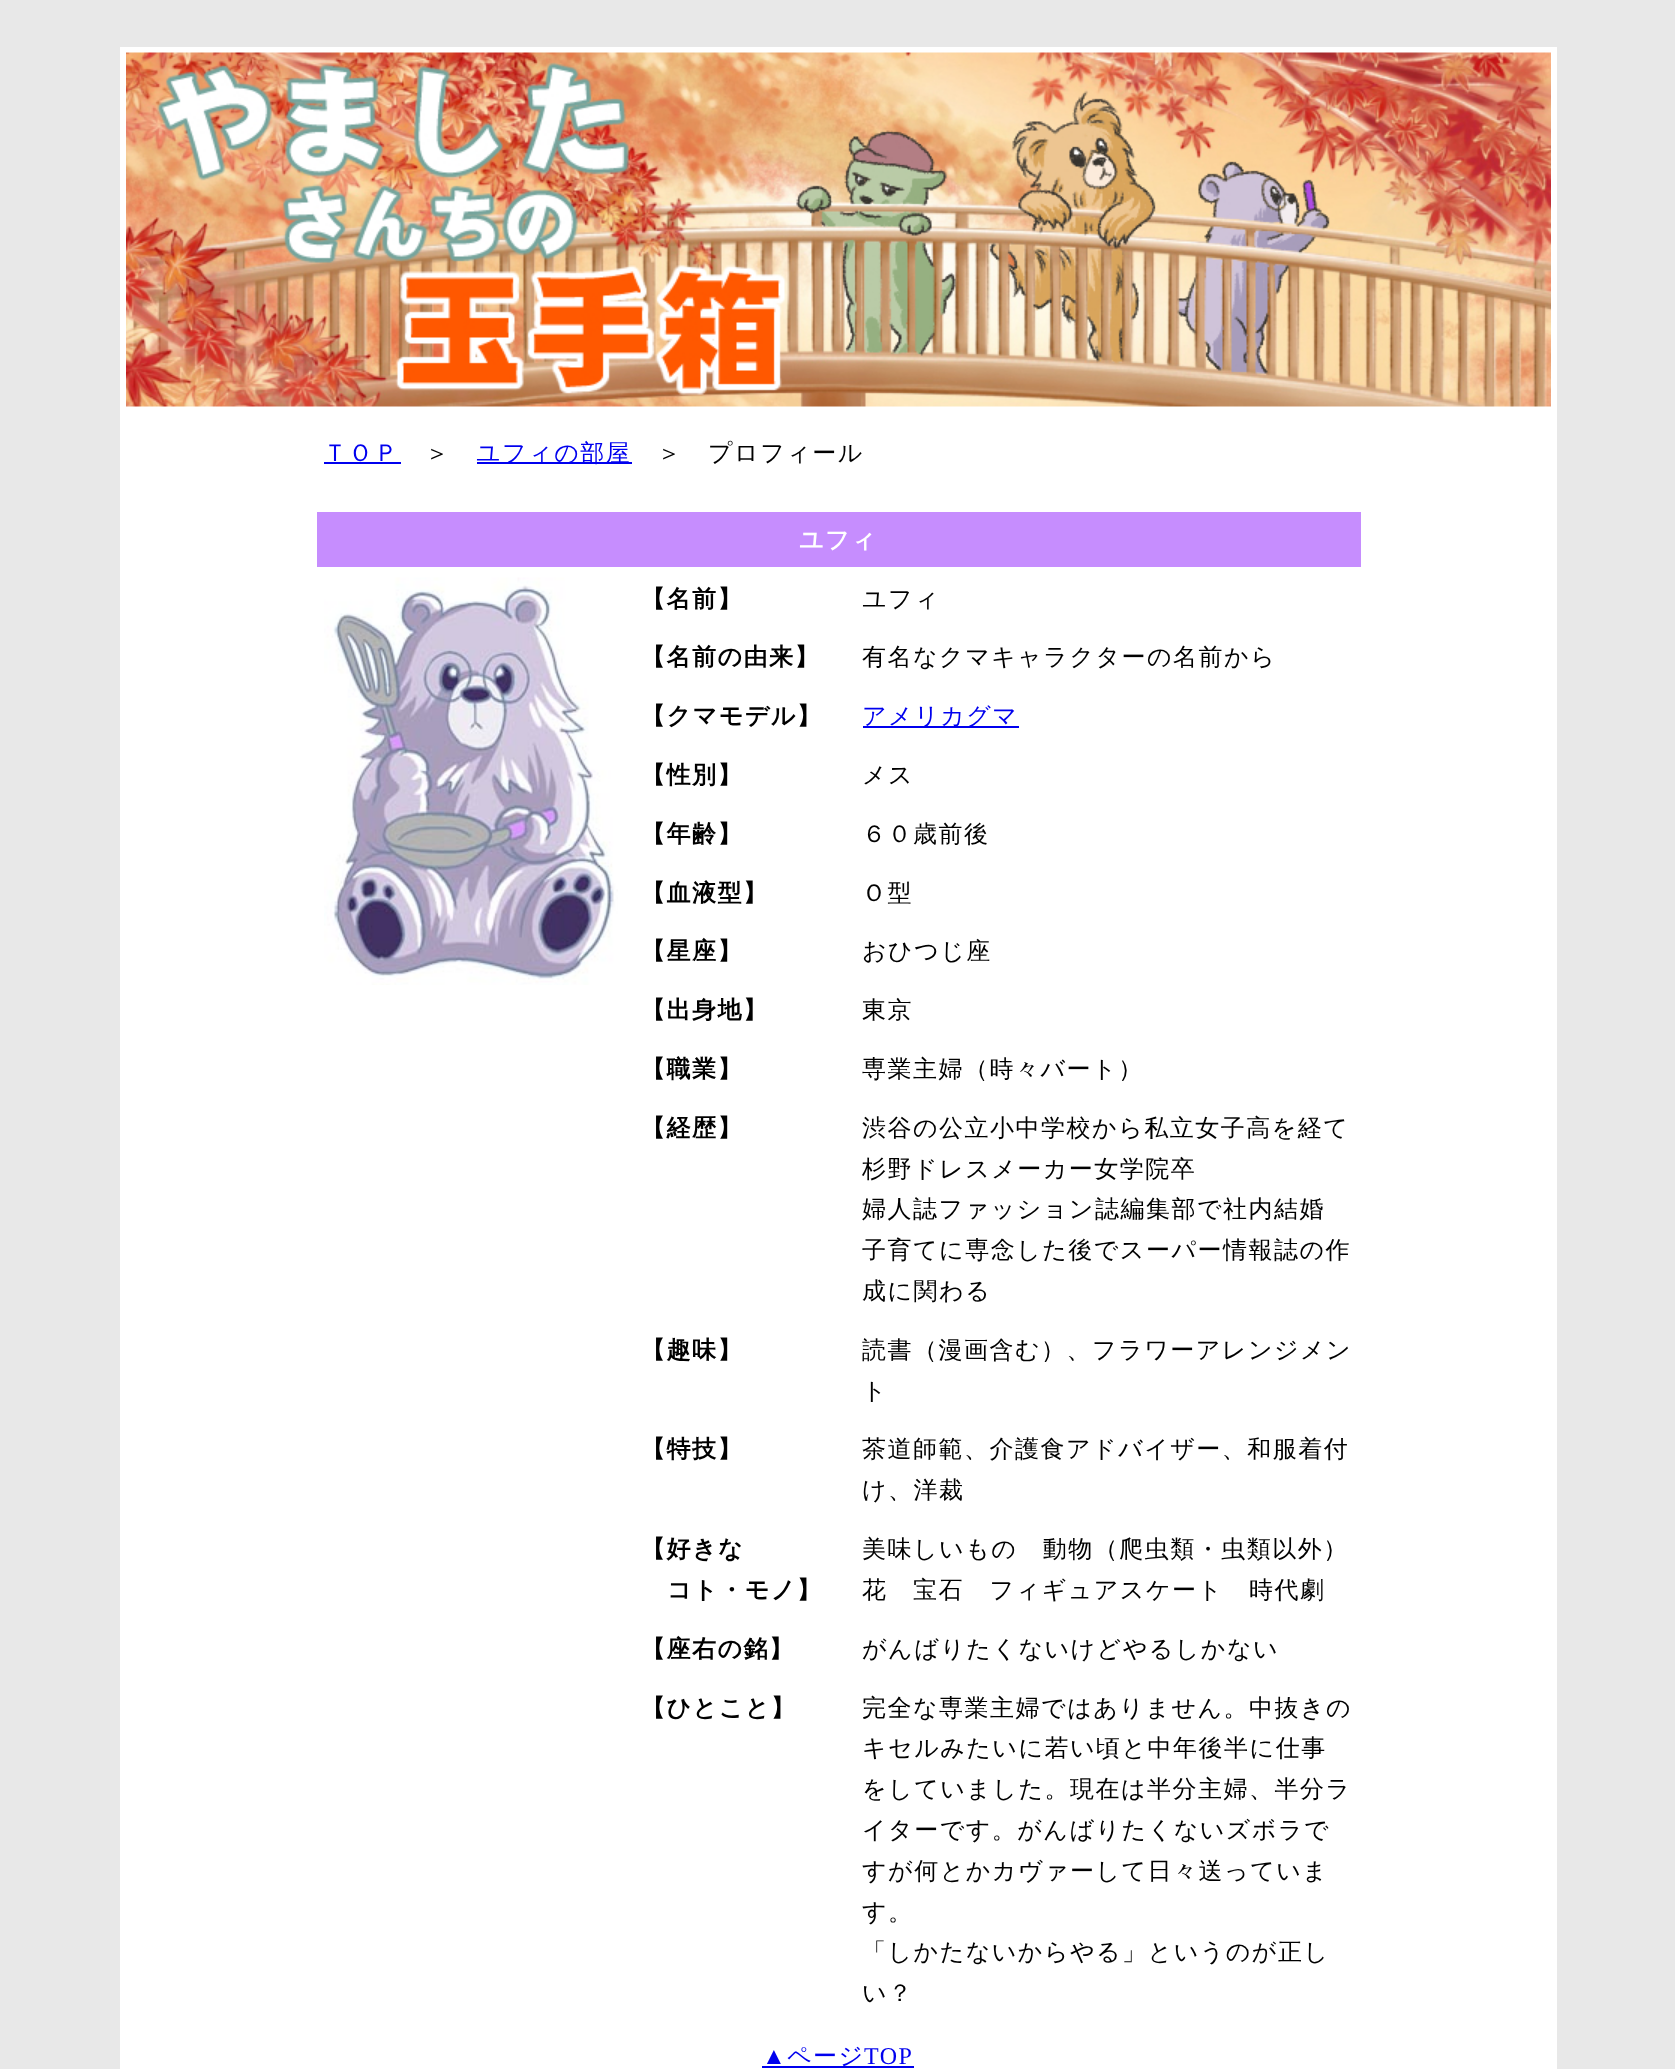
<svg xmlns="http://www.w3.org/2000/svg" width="1675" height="2069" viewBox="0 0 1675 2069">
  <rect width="100%" height="100%" fill="#e8e8e8"/>
  <rect x="120" y="47" width="1437" height="2022" fill="#ffffff"/>
  <image x="126" y="52" width="1425" height="355" href="img1.png"/>
  <text x="323" y="461" font-family="WenQuanYi Zen Hei" font-size="24" font-weight="500" letter-spacing="1.5" fill="#0000ee">ＴＯＰ</text>
  <rect x="324" y="462" width="77" height="2" fill="#0000ee"/>
  <text x="425" y="461" font-family="WenQuanYi Zen Hei" font-size="24" font-weight="500" letter-spacing="1.5" fill="#000000">＞</text>
  <rect x="477" y="462" width="155" height="2" fill="#0000ee"/>
  <text x="476" y="461" font-family="WenQuanYi Zen Hei" font-size="24" font-weight="500" letter-spacing="1.5" fill="#0000ee">ユフィの部屋</text>
  <text x="657" y="461" font-family="WenQuanYi Zen Hei" font-size="24" font-weight="500" letter-spacing="1.5" fill="#000000">＞　プロフィール</text>
  <rect x="317" y="512" width="1044" height="55" fill="#c68dfe"/>
  <text x="799" y="548" font-family="WenQuanYi Zen Hei" font-size="24" font-weight="bold" letter-spacing="1.5" fill="#ffffff">ユフィ</text>
  <image x="324" y="577" width="294" height="408" href="img2.png"/>
  <text x="641" y="607" font-family="WenQuanYi Zen Hei" font-size="24" font-weight="bold" letter-spacing="1.5" fill="#000000">【名前】</text>
  <text x="862" y="607" font-family="WenQuanYi Zen Hei" font-size="24" font-weight="500" letter-spacing="1.5" fill="#000000">ユフィ</text>
  <text x="641" y="665" font-family="WenQuanYi Zen Hei" font-size="24" font-weight="bold" letter-spacing="1.5" fill="#000000">【名前の由来】</text>
  <text x="862" y="665" font-family="WenQuanYi Zen Hei" font-size="24" font-weight="500" letter-spacing="1.5" fill="#000000">有名なクマキャラクターの名前から</text>
  <text x="641" y="724" font-family="WenQuanYi Zen Hei" font-size="24" font-weight="bold" letter-spacing="1.5" fill="#000000">【クマモデル】</text>
  <rect x="863" y="726" width="156" height="2" fill="#0000ee"/>
  <text x="862" y="724" font-family="WenQuanYi Zen Hei" font-size="24" font-weight="500" letter-spacing="1.5" fill="#0000ee">アメリカグマ</text>
  <text x="641" y="783" font-family="WenQuanYi Zen Hei" font-size="24" font-weight="bold" letter-spacing="1.5" fill="#000000">【性別】</text>
  <text x="862" y="783" font-family="WenQuanYi Zen Hei" font-size="24" font-weight="500" letter-spacing="1.5" fill="#000000">メス</text>
  <text x="641" y="842" font-family="WenQuanYi Zen Hei" font-size="24" font-weight="bold" letter-spacing="1.5" fill="#000000">【年齢】</text>
  <text x="862" y="842" font-family="WenQuanYi Zen Hei" font-size="24" font-weight="500" letter-spacing="1.5" fill="#000000">６０歳前後</text>
  <text x="641" y="901" font-family="WenQuanYi Zen Hei" font-size="24" font-weight="bold" letter-spacing="1.5" fill="#000000">【血液型】</text>
  <text x="862" y="901" font-family="WenQuanYi Zen Hei" font-size="24" font-weight="500" letter-spacing="1.5" fill="#000000">Ｏ型</text>
  <text x="641" y="959" font-family="WenQuanYi Zen Hei" font-size="24" font-weight="bold" letter-spacing="1.5" fill="#000000">【星座】</text>
  <text x="862" y="959" font-family="WenQuanYi Zen Hei" font-size="24" font-weight="500" letter-spacing="1.5" fill="#000000">おひつじ座</text>
  <text x="641" y="1018" font-family="WenQuanYi Zen Hei" font-size="24" font-weight="bold" letter-spacing="1.5" fill="#000000">【出身地】</text>
  <text x="862" y="1018" font-family="WenQuanYi Zen Hei" font-size="24" font-weight="500" letter-spacing="1.5" fill="#000000">東京</text>
  <text x="641" y="1077" font-family="WenQuanYi Zen Hei" font-size="24" font-weight="bold" letter-spacing="1.5" fill="#000000">【職業】</text>
  <text x="862" y="1077" font-family="WenQuanYi Zen Hei" font-size="24" font-weight="500" letter-spacing="1.5" fill="#000000">専業主婦（時々バート）</text>
  <text x="641" y="1136" font-family="WenQuanYi Zen Hei" font-size="24" font-weight="bold" letter-spacing="1.5" fill="#000000">【経歴】</text>
  <text x="862" y="1136" font-family="WenQuanYi Zen Hei" font-size="24" font-weight="500" letter-spacing="1.5" fill="#000000">渋谷の公立小中学校から私立女子高を経て</text>
  <text x="862" y="1177" font-family="WenQuanYi Zen Hei" font-size="24" font-weight="500" letter-spacing="1.5" fill="#000000">杉野ドレスメーカー女学院卒</text>
  <text x="862" y="1217" font-family="WenQuanYi Zen Hei" font-size="24" font-weight="500" letter-spacing="1.5" fill="#000000">婦人誌ファッション誌編集部で社内結婚</text>
  <text x="862" y="1258" font-family="WenQuanYi Zen Hei" font-size="24" font-weight="500" letter-spacing="1.5" fill="#000000">子育てに専念した後でスーパー情報誌の作</text>
  <text x="862" y="1299" font-family="WenQuanYi Zen Hei" font-size="24" font-weight="500" letter-spacing="1.5" fill="#000000">成に関わる</text>
  <text x="641" y="1358" font-family="WenQuanYi Zen Hei" font-size="24" font-weight="bold" letter-spacing="1.5" fill="#000000">【趣味】</text>
  <text x="862" y="1358" font-family="WenQuanYi Zen Hei" font-size="24" font-weight="500" letter-spacing="1.5" fill="#000000">読書（漫画含む）、フラワーアレンジメン</text>
  <text x="862" y="1399" font-family="WenQuanYi Zen Hei" font-size="24" font-weight="500" letter-spacing="1.5" fill="#000000">ト</text>
  <text x="641" y="1457" font-family="WenQuanYi Zen Hei" font-size="24" font-weight="bold" letter-spacing="1.5" fill="#000000">【特技】</text>
  <text x="862" y="1457" font-family="WenQuanYi Zen Hei" font-size="24" font-weight="500" letter-spacing="1.5" fill="#000000">茶道師範、介護食アドバイザー、和服着付</text>
  <text x="862" y="1498" font-family="WenQuanYi Zen Hei" font-size="24" font-weight="500" letter-spacing="1.5" fill="#000000">け、洋裁</text>
  <text x="641" y="1557" font-family="WenQuanYi Zen Hei" font-size="24" font-weight="bold" letter-spacing="1.5" fill="#000000">【好きな</text>
  <text x="667" y="1598" font-family="WenQuanYi Zen Hei" font-size="24" font-weight="bold" letter-spacing="1.5" fill="#000000">コト・モノ】</text>
  <text x="862" y="1557" font-family="WenQuanYi Zen Hei" font-size="24" font-weight="500" letter-spacing="1.5" fill="#000000">美味しいもの　動物（爬虫類・虫類以外）</text>
  <text x="862" y="1598" font-family="WenQuanYi Zen Hei" font-size="24" font-weight="500" letter-spacing="1.5" fill="#000000">花　宝石　フィギュアスケート　時代劇</text>
  <text x="641" y="1657" font-family="WenQuanYi Zen Hei" font-size="24" font-weight="bold" letter-spacing="1.5" fill="#000000">【座右の銘】</text>
  <text x="862" y="1657" font-family="WenQuanYi Zen Hei" font-size="24" font-weight="500" letter-spacing="1.5" fill="#000000">がんばりたくないけどやるしかない</text>
  <text x="641" y="1716" font-family="WenQuanYi Zen Hei" font-size="24" font-weight="bold" letter-spacing="1.5" fill="#000000">【ひとこと】</text>
  <text x="862" y="1716" font-family="WenQuanYi Zen Hei" font-size="24" font-weight="500" letter-spacing="1.5" fill="#000000">完全な専業主婦ではありません。中抜きの</text>
  <text x="862" y="1756" font-family="WenQuanYi Zen Hei" font-size="24" font-weight="500" letter-spacing="1.5" fill="#000000">キセルみたいに若い頃と中年後半に仕事</text>
  <text x="862" y="1797" font-family="WenQuanYi Zen Hei" font-size="24" font-weight="500" letter-spacing="1.5" fill="#000000">をしていました。現在は半分主婦、半分ラ</text>
  <text x="862" y="1838" font-family="WenQuanYi Zen Hei" font-size="24" font-weight="500" letter-spacing="1.5" fill="#000000">イターです。がんばりたくないズボラで</text>
  <text x="862" y="1879" font-family="WenQuanYi Zen Hei" font-size="24" font-weight="500" letter-spacing="1.5" fill="#000000">すが何とかカヴァーして日々送っていま</text>
  <text x="862" y="1920" font-family="WenQuanYi Zen Hei" font-size="24" font-weight="500" letter-spacing="1.5" fill="#000000">す。</text>
  <text x="862" y="1960" font-family="WenQuanYi Zen Hei" font-size="24" font-weight="500" letter-spacing="1.5" fill="#000000">「しかたないからやる」というのが正し</text>
  <text x="862" y="2001" font-family="WenQuanYi Zen Hei" font-size="24" font-weight="500" letter-spacing="1.5" fill="#000000">い？</text>
  <text x="762" y="2064" font-family="Liberation Serif" font-size="24" letter-spacing="1.5" fill="#0000ee">▲</text>
  <rect x="762" y="2066" width="152" height="2" fill="#0000ee"/>
  <text x="787" y="2064" font-family="WenQuanYi Zen Hei" font-size="24" font-weight="500" letter-spacing="1.5" fill="#0000ee">ページ</text>
  <text x="864" y="2064" font-family="Liberation Serif" font-size="24" letter-spacing="1.5" fill="#0000ee">TOP</text>
</svg>
